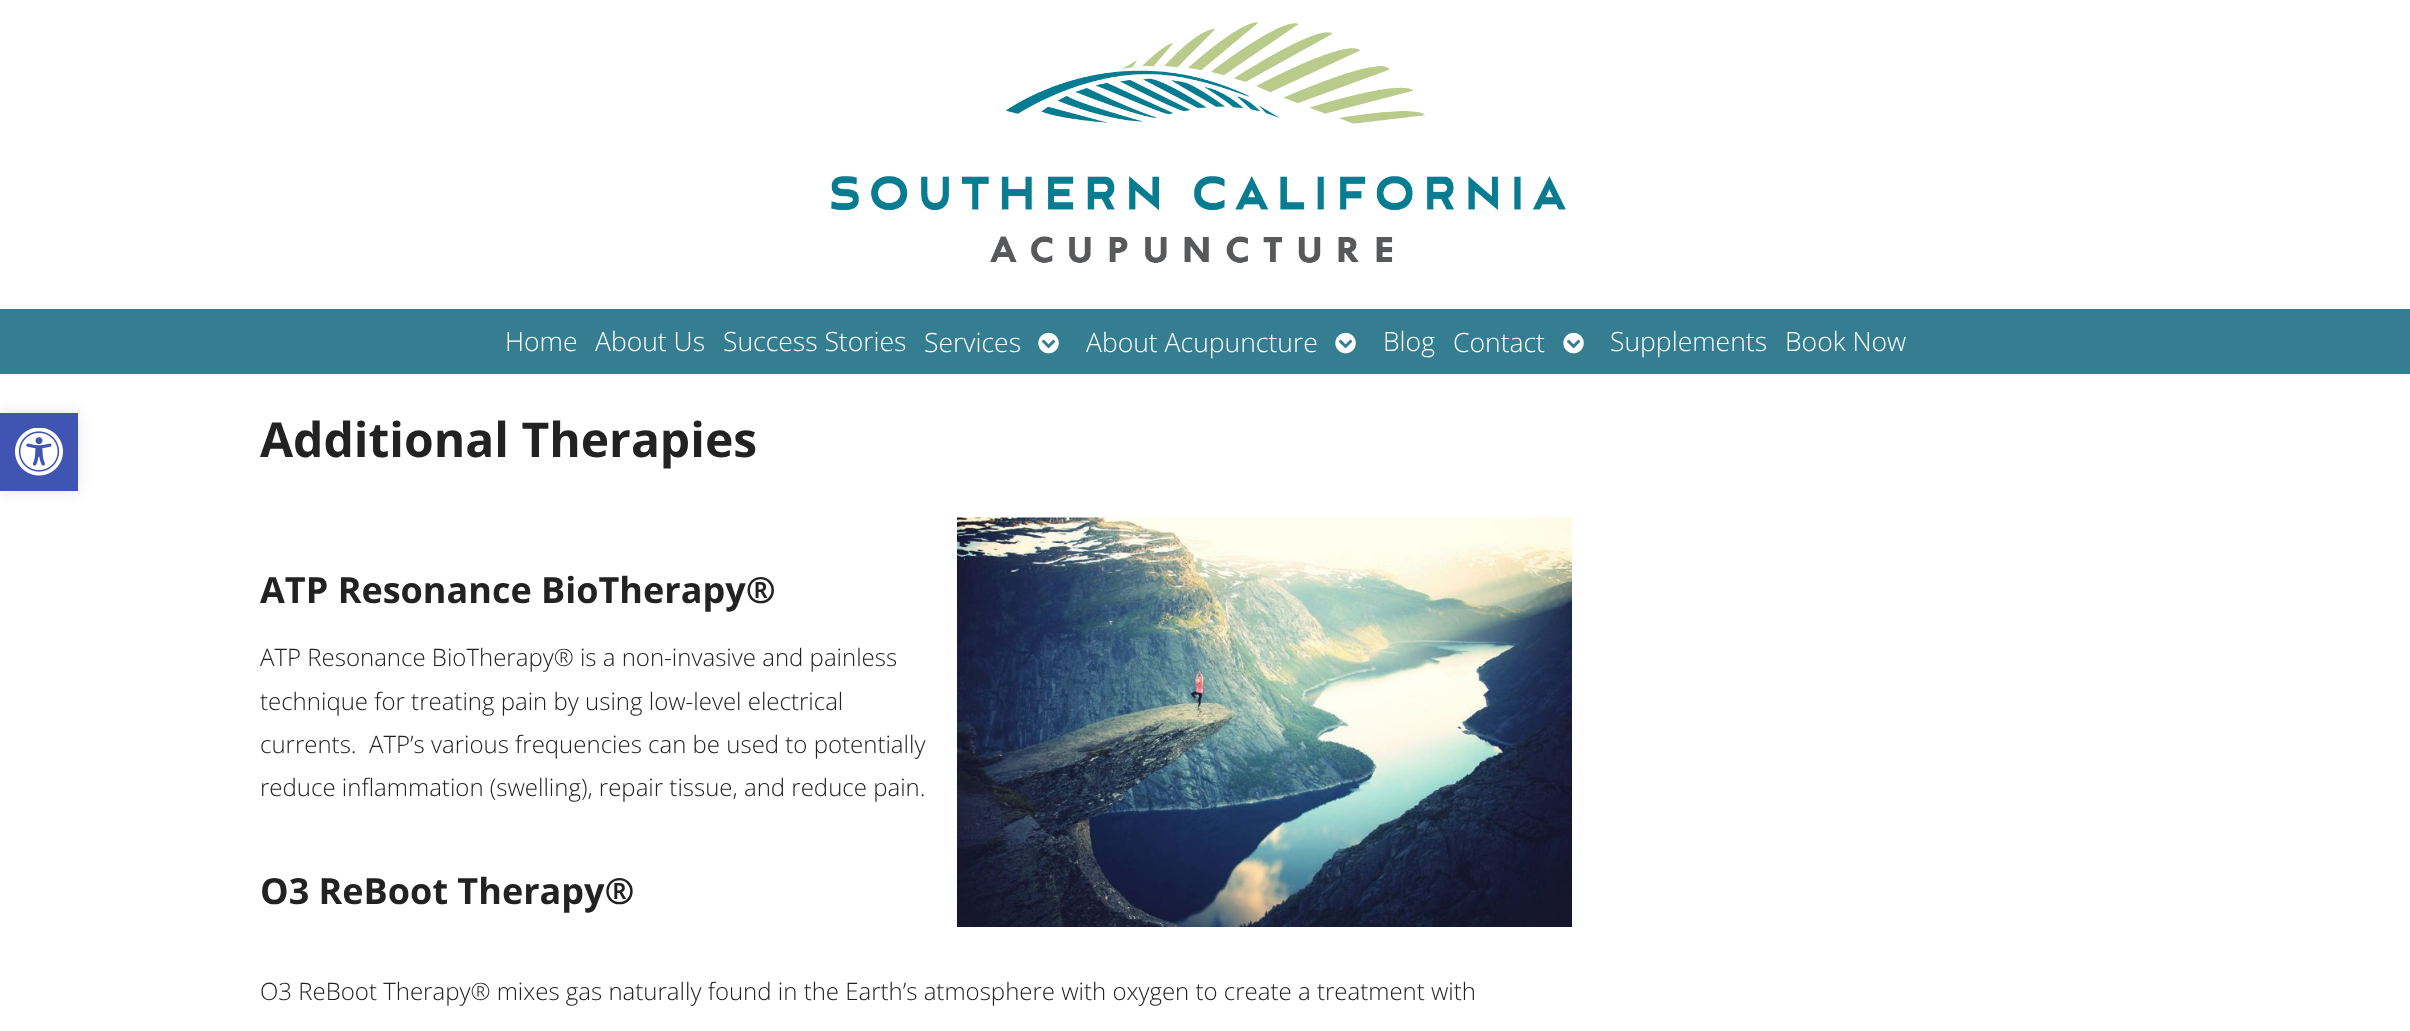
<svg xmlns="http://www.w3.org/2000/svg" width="2410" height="1031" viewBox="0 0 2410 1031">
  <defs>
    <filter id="blur1" x="-50%" y="-200%" width="200%" height="500%"><feGaussianBlur stdDeviation="7.5"/></filter>
  </defs>
  <rect width="100%" height="100%" fill="#ffffff"/>
  <rect x="0" y="413" width="78" height="78" fill="#000000" fill-opacity="0.1" filter="url(#blur1)"/>
  <rect x="0" y="413" width="78" height="78" fill="#4054b2"/>
  <image x="15" y="428" width="48" height="48" href="img1.png"/>
  <image x="831" y="22" width="735" height="241" href="img2.png"/>
  <rect x="0" y="309" width="2410" height="65" fill="#357e92"/>
  <text x="505" y="351" font-family="Open Sans" font-size="26.5" font-weight="300" fill="#ffffff">Home</text>
  <text x="595" y="351" font-family="Open Sans" font-size="26.5" font-weight="300" fill="#ffffff">About Us</text>
  <text x="723" y="351" font-family="Open Sans" font-size="26.5" font-weight="300" fill="#ffffff">Success Stories</text>
  <text x="924" y="352" font-family="Open Sans" font-size="26.5" font-weight="300" fill="#ffffff">Services</text>
  <image x="1038" y="332" width="21" height="22" href="img3.png"/>
  <text x="1086" y="352" font-family="Open Sans" font-size="26.5" font-weight="300" fill="#ffffff">About Acupuncture</text>
  <image x="1335" y="332" width="21" height="22" href="img3.png"/>
  <text x="1383" y="351" font-family="Open Sans" font-size="26.5" font-weight="300" fill="#ffffff">Blog</text>
  <text x="1453" y="352" font-family="Open Sans" font-size="26.5" font-weight="300" fill="#ffffff">Contact</text>
  <image x="1563" y="332" width="21" height="22" href="img3.png"/>
  <text x="1610" y="351" font-family="Open Sans" font-size="26.5" font-weight="300" fill="#ffffff">Supplements</text>
  <text x="1785" y="351" font-family="Open Sans" font-size="26.5" font-weight="300" fill="#ffffff">Book Now</text>
  <text x="260" y="457" font-family="Open Sans" font-size="48" font-weight="bold" fill="#222222">Additional Therapies</text>
  <text x="260" y="603" font-family="Open Sans" font-size="36" font-weight="bold" fill="#222222">ATP Resonance BioTherapy®</text>
  <image x="957" y="517" width="615" height="410" href="img4.png"/>
  <text x="260" y="666" font-family="Open Sans" font-size="24" font-weight="300" fill="#222222">ATP Resonance BioTherapy® is a non-invasive and painless</text>
  <text x="260" y="710" font-family="Open Sans" font-size="24" font-weight="300" fill="#222222">technique for treating pain by using low-level electrical</text>
  <text x="260" y="753" font-family="Open Sans" font-size="24" font-weight="300" fill="#222222" xml:space="preserve">currents.  ATP’s various frequencies can be used to potentially</text>
  <text x="260" y="796" font-family="Open Sans" font-size="24" font-weight="300" fill="#222222">reduce inflammation (swelling), repair tissue, and reduce pain.</text>
  <text x="260" y="904" font-family="Open Sans" font-size="36" font-weight="bold" fill="#222222">O3 ReBoot Therapy®</text>
  <text x="260" y="1000" font-family="Open Sans" font-size="24" font-weight="300" fill="#222222">O3 ReBoot Therapy® mixes gas naturally found in the Earth’s atmosphere with oxygen to create a treatment with</text>
</svg>
